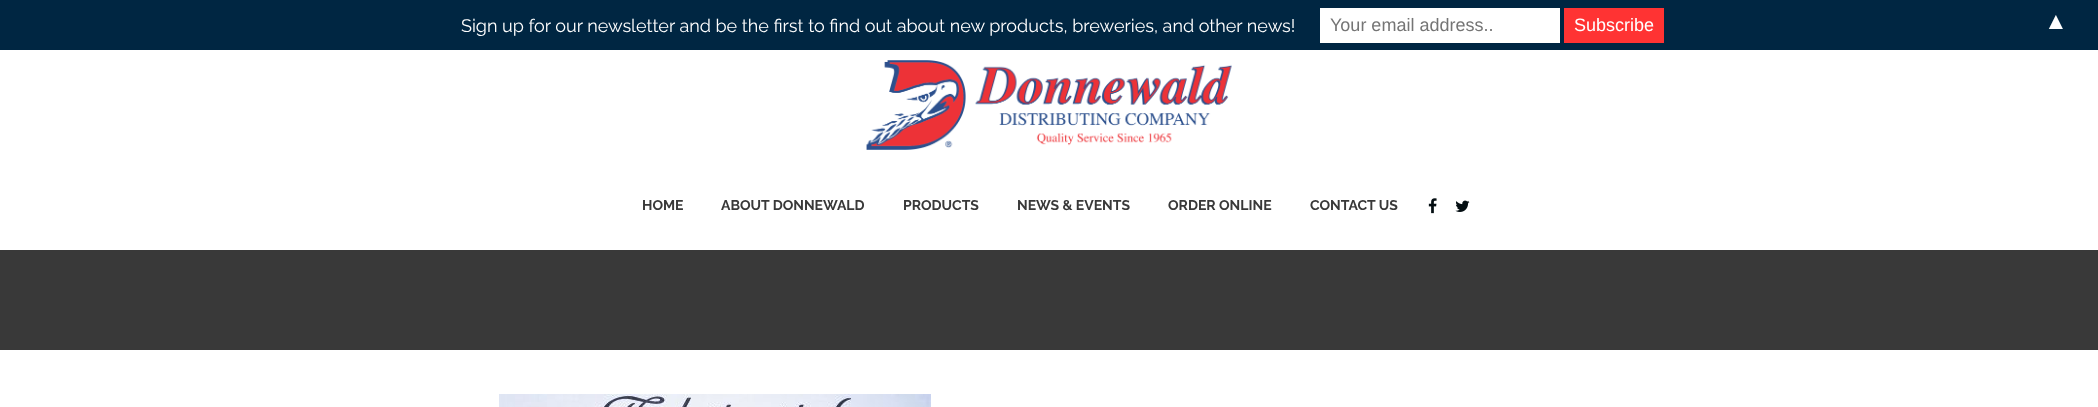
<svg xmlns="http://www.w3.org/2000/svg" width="2098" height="407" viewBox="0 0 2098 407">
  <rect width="100%" height="100%" fill="#ffffff"/>
  <rect x="0" y="0" width="2098" height="50" fill="#002642"/>
  <text x="461" y="32" font-family="Raleway" font-size="18" fill="#ffffff">Sign up for our newsletter and be the first to find out about new products, breweries, and other news!</text>
  <rect x="1320" y="8" width="240" height="35" fill="#ffffff"/>
  <text x="1330" y="31" font-family="Liberation Sans" font-size="18" fill="#757575">Your email address..</text>
  <rect x="1564" y="8" width="100" height="35" fill="#ff3333"/>
  <text x="1574" y="31" font-family="Liberation Sans" font-size="18" fill="#ffffff">Subscribe</text>
  <text x="2044" y="29" font-family="Liberation Sans" font-size="24" fill="#ffffff">▲</text>
  <image x="866" y="60" width="366" height="90" href="img1.png"/>
  <text x="642" y="210" font-family="Raleway" font-size="14" font-weight="bold" fill="#393939">HOME</text>
  <text x="721" y="210" font-family="Raleway" font-size="14" font-weight="bold" fill="#393939">ABOUT DONNEWALD</text>
  <text x="903" y="210" font-family="Raleway" font-size="14" font-weight="bold" fill="#393939">PRODUCTS</text>
  <text x="1017" y="210" font-family="Raleway" font-size="14" font-weight="bold" fill="#393939">NEWS &amp; EVENTS</text>
  <text x="1168" y="210" font-family="Raleway" font-size="14" font-weight="bold" fill="#393939">ORDER ONLINE</text>
  <text x="1310" y="210" font-family="Raleway" font-size="14" font-weight="bold" fill="#393939">CONTACT US</text>
  <image x="1428" y="198" width="9" height="16" href="img2.png"/>
  <image x="1455" y="200" width="15" height="12" href="img3.png"/>
  <rect x="0" y="250" width="2098" height="100" fill="#393939"/>
  <image x="499" y="394" width="432" height="13" href="img4.png"/>
</svg>
